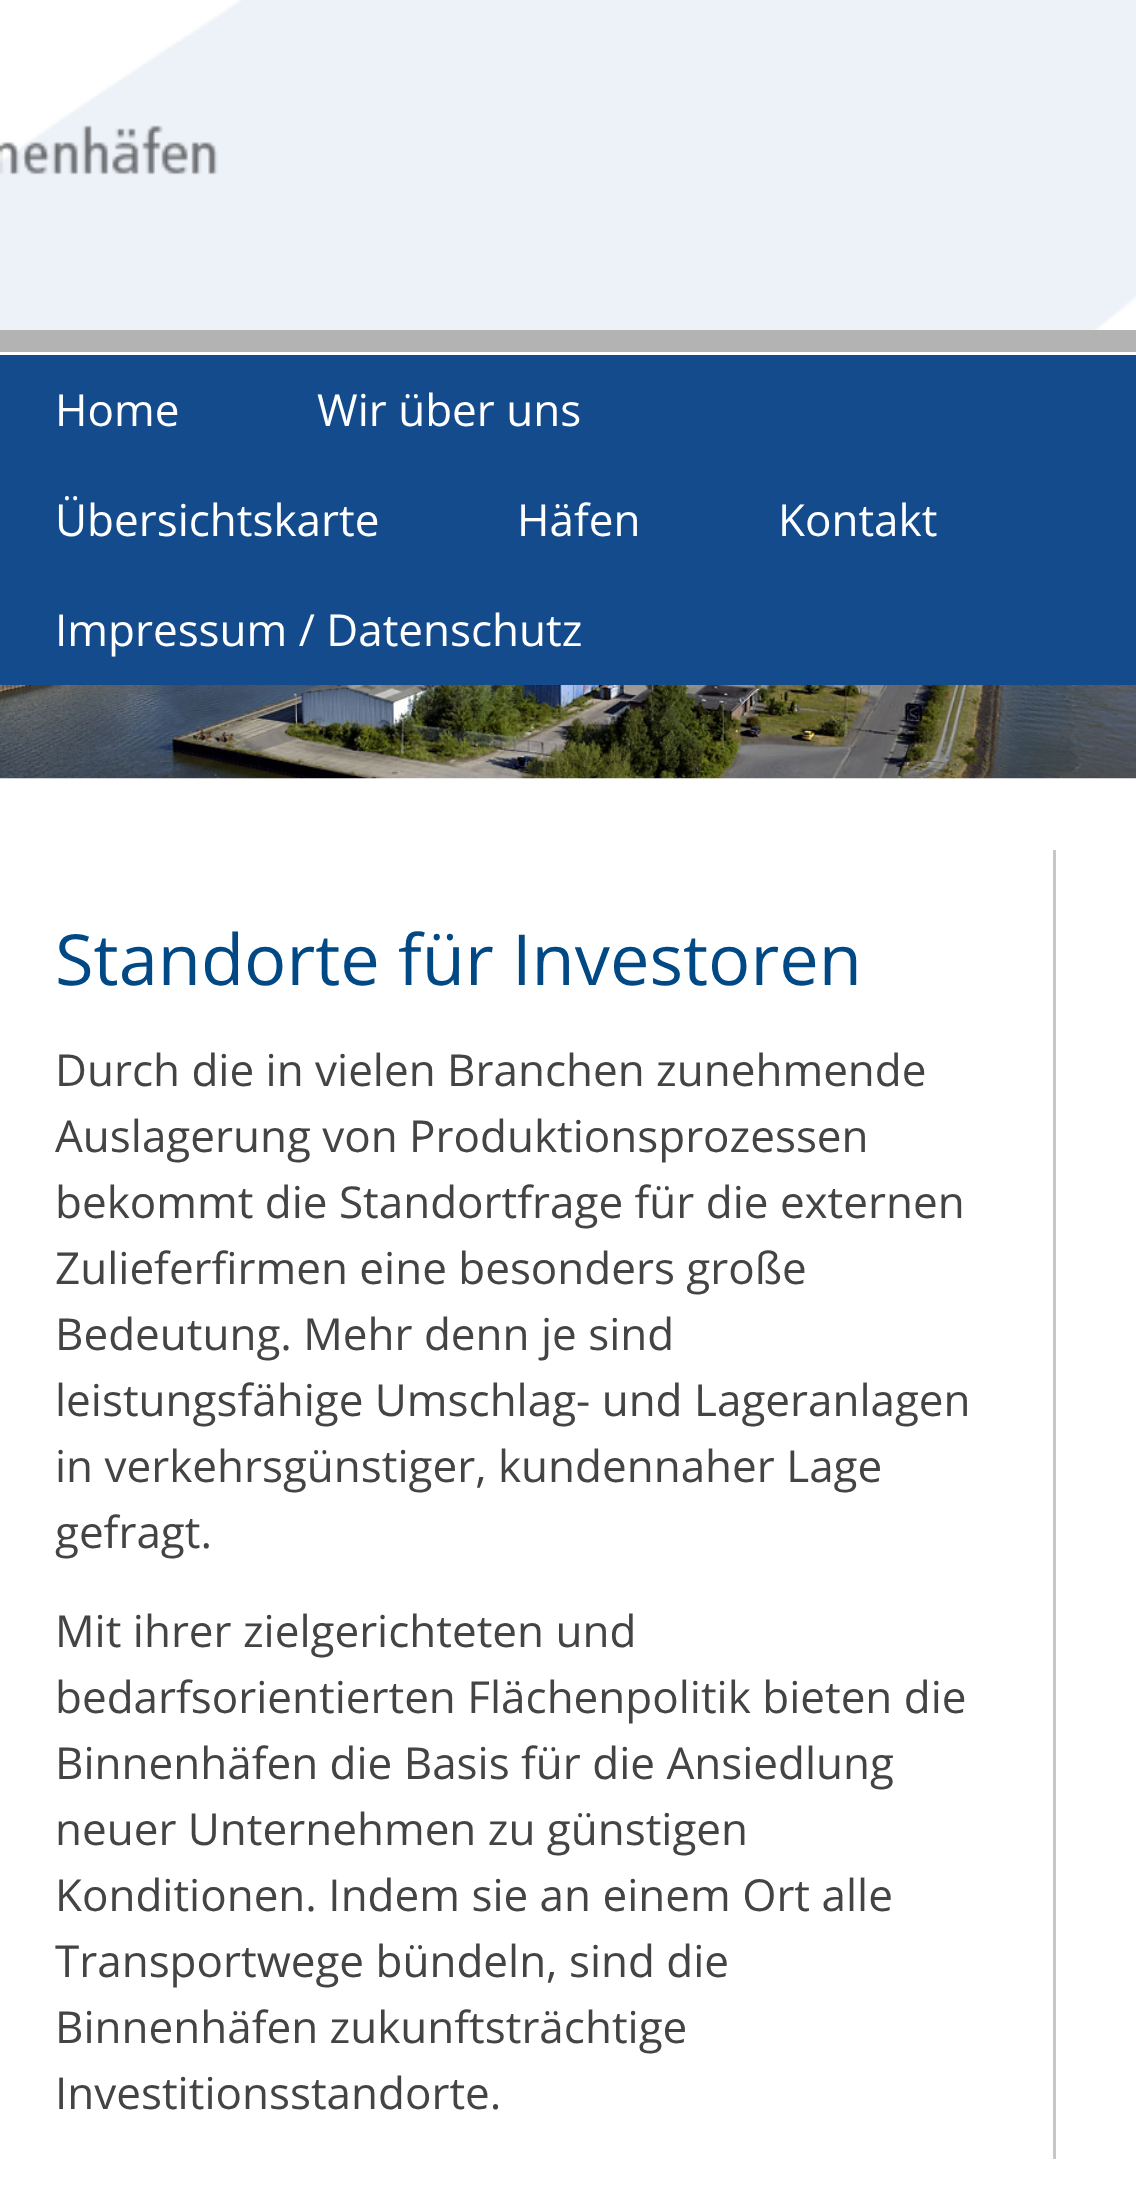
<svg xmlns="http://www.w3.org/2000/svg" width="1136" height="2212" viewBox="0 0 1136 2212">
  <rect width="100%" height="100%" fill="#ffffff"/>
  <image x="0" y="0" width="1136" height="330" href="img1.png"/>
  <rect x="0" y="330" width="1136" height="22" fill="#b3b3b3"/>
  <rect x="0" y="355" width="1136" height="330" fill="#134b8c"/>
  <text x="55" y="426" font-family="Open Sans" font-size="44" fill="#ffffff">Home</text>
  <text x="317" y="426" font-family="Open Sans" font-size="44" fill="#ffffff">Wir über uns</text>
  <text x="55" y="536" font-family="Open Sans" font-size="44" fill="#ffffff">Übersichtskarte</text>
  <text x="517" y="536" font-family="Open Sans" font-size="44" fill="#ffffff">Häfen</text>
  <text x="778" y="536" font-family="Open Sans" font-size="44" fill="#ffffff">Kontakt</text>
  <text x="55" y="646" font-family="Open Sans" font-size="44" fill="#ffffff">Impressum / Datenschutz</text>
  <image x="0" y="685" width="1136" height="94" href="img2.png"/>
  <rect x="1053" y="850" width="3" height="1309" fill="#c6c7c9"/>
  <text x="55" y="985" font-family="Open Sans" font-size="70.4" fill="#004985">Standorte für Investoren</text>
  <text x="55" y="1086" font-family="Open Sans" font-size="44" fill="#444444">Durch die in vielen Branchen zunehmende</text>
  <text x="55" y="1152" font-family="Open Sans" font-size="44" fill="#444444">Auslagerung von Produktionsprozessen</text>
  <text x="55" y="1218" font-family="Open Sans" font-size="44" fill="#444444">bekommt die Standortfrage für die externen</text>
  <text x="55" y="1284" font-family="Open Sans" font-size="44" fill="#444444">Zulieferfirmen eine besonders große</text>
  <text x="55" y="1350" font-family="Open Sans" font-size="44" fill="#444444">Bedeutung. Mehr denn je sind</text>
  <text x="55" y="1416" font-family="Open Sans" font-size="44" fill="#444444">leistungsfähige Umschlag- und Lageranlagen</text>
  <text x="55" y="1482" font-family="Open Sans" font-size="44" fill="#444444">in verkehrsgünstiger, kundennaher Lage</text>
  <text x="55" y="1548" font-family="Open Sans" font-size="44" fill="#444444">gefragt.</text>
  <text x="55" y="1647" font-family="Open Sans" font-size="44" fill="#444444">Mit ihrer zielgerichteten und</text>
  <text x="55" y="1713" font-family="Open Sans" font-size="44" fill="#444444">bedarfsorientierten Flächenpolitik bieten die</text>
  <text x="55" y="1779" font-family="Open Sans" font-size="44" fill="#444444">Binnenhäfen die Basis für die Ansiedlung</text>
  <text x="55" y="1845" font-family="Open Sans" font-size="44" fill="#444444">neuer Unternehmen zu günstigen</text>
  <text x="55" y="1911" font-family="Open Sans" font-size="44" fill="#444444">Konditionen. Indem sie an einem Ort alle</text>
  <text x="55" y="1977" font-family="Open Sans" font-size="44" fill="#444444">Transportwege bündeln, sind die</text>
  <text x="55" y="2043" font-family="Open Sans" font-size="44" fill="#444444">Binnenhäfen zukunftsträchtige</text>
  <text x="55" y="2109" font-family="Open Sans" font-size="44" fill="#444444">Investitionsstandorte.</text>
</svg>
